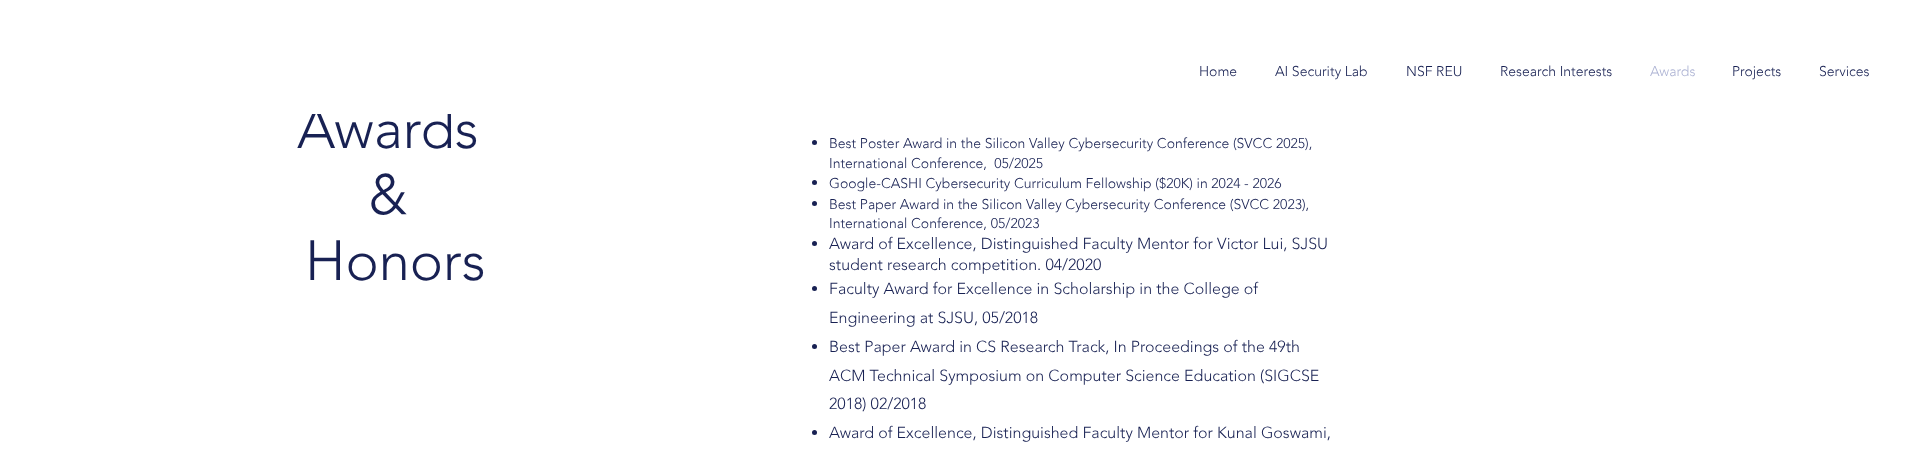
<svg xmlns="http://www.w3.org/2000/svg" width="1908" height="461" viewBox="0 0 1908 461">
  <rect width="100%" height="100%" fill="#ffffff"/>
  <text x="1199" y="76" font-family="'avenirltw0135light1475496'" font-size="14" font-weight="300" fill="#182153">Home</text>
  <text x="1275" y="76" font-family="'avenirltw0135light1475496'" font-size="14" font-weight="300" fill="#182153">AI Security Lab</text>
  <text x="1406" y="76" font-family="'avenirltw0135light1475496'" font-size="14" font-weight="300" fill="#182153">NSF REU</text>
  <text x="1500" y="76" font-family="'avenirltw0135light1475496'" font-size="14" font-weight="300" fill="#182153">Research Interests</text>
  <text x="1650" y="76" font-family="'avenirltw0135light1475496'" font-size="14" font-weight="300" fill="#aeb4d4">Awards</text>
  <text x="1732" y="76" font-family="'avenirltw0135light1475496'" font-size="14" font-weight="300" fill="#182153">Projects</text>
  <text x="1819" y="76" font-family="'avenirltw0135light1475496'" font-size="14" font-weight="300" fill="#182153">Services</text>
  <text x="297" y="148" font-family="'avenirltw0135light1475496'" font-size="56" font-weight="300" fill="#182153">Awards</text>
  <text x="368" y="214" font-family="'avenirltw0135light1475496'" font-size="56" font-weight="300" fill="#182153">&amp;</text>
  <text x="305" y="280" font-family="'avenirltw0135light1475496'" font-size="56" font-weight="300" fill="#182153">Honors</text>
  <circle cx="814.5" cy="142.5" r="2.5" fill="#182153"/>
  <text x="829" y="148" font-family="'avenirltw0135light1475496'" font-size="14" font-weight="300" fill="#182153">Best Poster Award in the Silicon Valley Cybersecurity Conference (SVCC 2025),</text>
  <text x="829" y="168" font-family="'avenirltw0135light1475496'" font-size="14" font-weight="300" fill="#182153" xml:space="preserve">International Conference,  05/2025</text>
  <circle cx="814.5" cy="182.5" r="2.5" fill="#182153"/>
  <text x="829" y="188" font-family="'avenirltw0135light1475496'" font-size="14" font-weight="300" fill="#182153">Google-CASHI Cybersecurity Curriculum Fellowship ($20K) in 2024 - 2026</text>
  <circle cx="814.5" cy="203.5" r="2.5" fill="#182153"/>
  <text x="829" y="209" font-family="'avenirltw0135light1475496'" font-size="14" font-weight="300" fill="#182153">Best Paper Award in the Silicon Valley Cybersecurity Conference (SVCC 2023),</text>
  <text x="829" y="228" font-family="'avenirltw0135light1475496'" font-size="14" font-weight="300" fill="#182153">International Conference, 05/2023</text>
  <circle cx="814.5" cy="243.5" r="2.5" fill="#182153"/>
  <text x="829" y="249" font-family="'avenirltw0135light1475496'" font-size="16" font-weight="300" fill="#182153">Award of Excellence, Distinguished Faculty Mentor for Victor Lui, SJSU</text>
  <text x="829" y="270" font-family="'avenirltw0135light1475496'" font-size="16" font-weight="300" fill="#182153">student research competition. 04/2020</text>
  <circle cx="814.5" cy="288.5" r="2.5" fill="#182153"/>
  <text x="829" y="294" font-family="'avenirltw0135light1475496'" font-size="16" font-weight="300" fill="#182153">Faculty Award for Excellence in Scholarship in the College of</text>
  <text x="829" y="323" font-family="'avenirltw0135light1475496'" font-size="16" font-weight="300" fill="#182153">Engineering at SJSU, 05/2018</text>
  <circle cx="814.5" cy="346.5" r="2.5" fill="#182153"/>
  <text x="829" y="352" font-family="'avenirltw0135light1475496'" font-size="16" font-weight="300" fill="#182153">Best Paper Award in CS Research Track, In Proceedings of the 49th</text>
  <text x="829" y="381" font-family="'avenirltw0135light1475496'" font-size="16" font-weight="300" fill="#182153">ACM Technical Symposium on Computer Science Education (SIGCSE</text>
  <text x="829" y="409" font-family="'avenirltw0135light1475496'" font-size="16" font-weight="300" fill="#182153">2018) 02/2018</text>
  <circle cx="814.5" cy="432.5" r="2.5" fill="#182153"/>
  <text x="829" y="438" font-family="'avenirltw0135light1475496'" font-size="16" font-weight="300" fill="#182153">Award of Excellence, Distinguished Faculty Mentor for Kunal Goswami,</text>
  <rect x="312" y="105" width="140" height="9" fill="#ffffff"/>
</svg>
